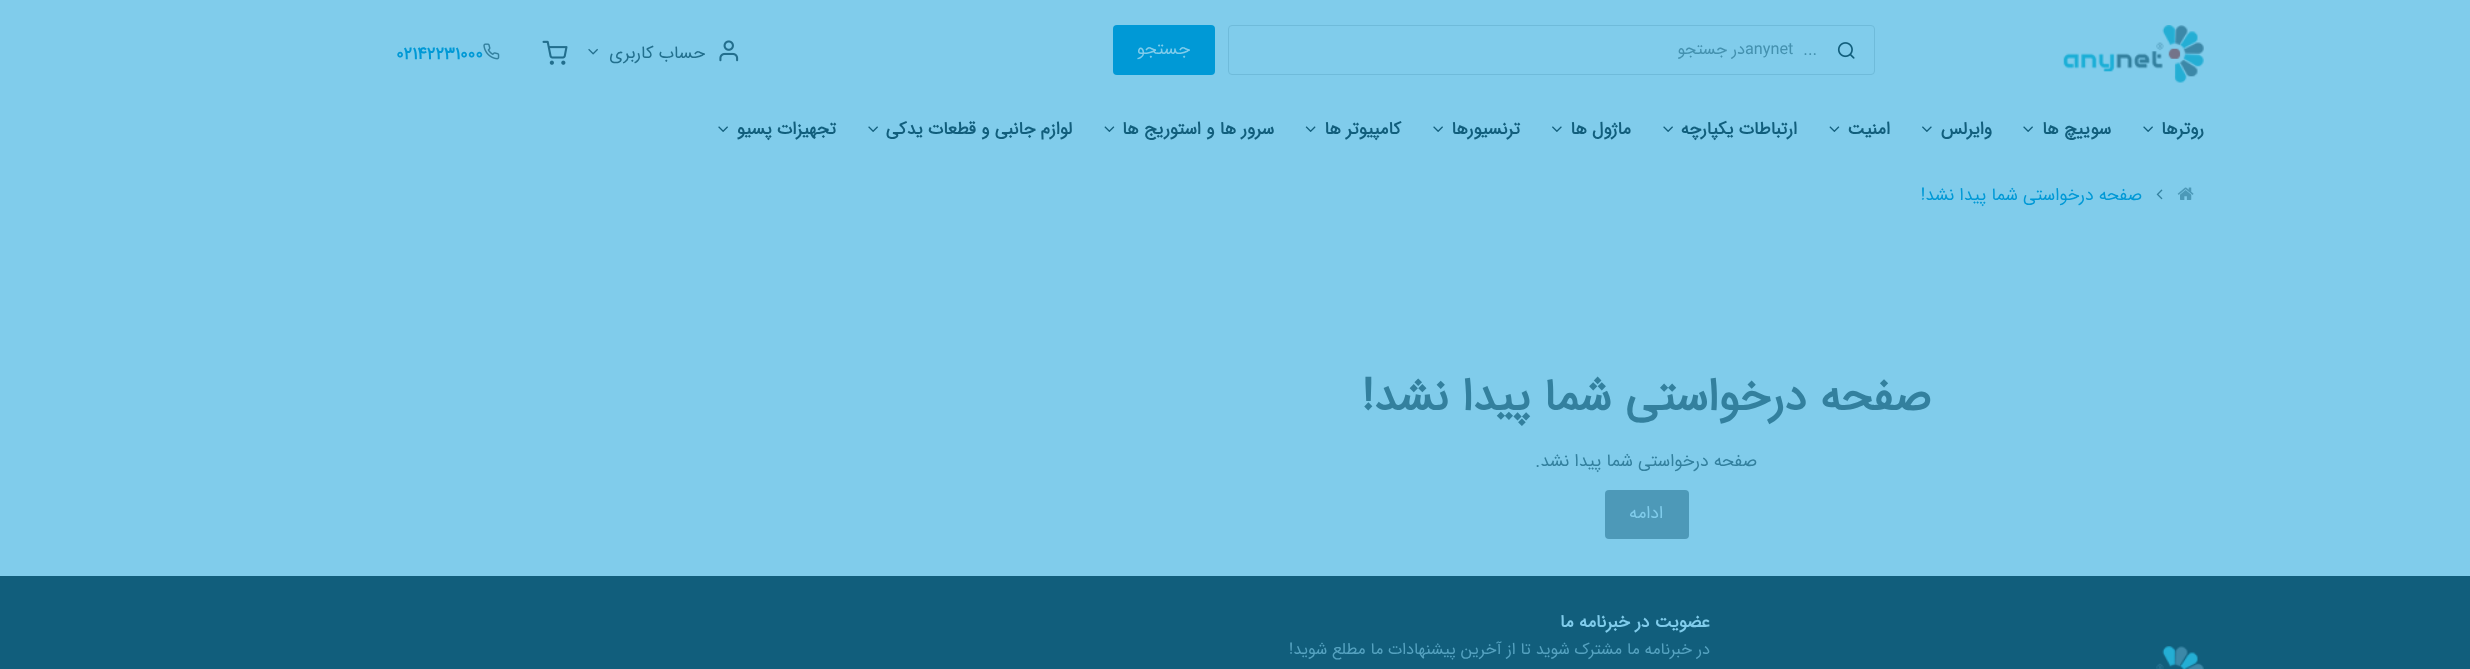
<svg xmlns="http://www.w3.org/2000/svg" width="2470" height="669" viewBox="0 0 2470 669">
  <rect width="100%" height="100%" fill="#80cceb"/>
  <image x="2063" y="25" width="141" height="58" href="img1.png"/>
  <rect x="1228.5" y="25.5" width="646" height="49" rx="3.5" fill="none" stroke="#6fbbda"/>
  <image x="1837" y="42" width="18" height="17" href="img2.png"/>
  <text x="1745" y="54" word-spacing="5" font-family="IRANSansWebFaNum" font-size="16.25" fill="#4491af">anynet ...</text>
  <text x="1745" y="54" font-family="IRANSansWebFaNum" font-size="16.25" direction="rtl" fill="#4491af">در</text>
  <text x="1727" y="54" font-family="IRANSansWebFaNum" font-size="16.25" direction="rtl" fill="#4491af">جستجو</text>
  <rect x="1113" y="25" width="102" height="50" rx="4" fill="#0099d6"/>
  <text x="1190" y="54" font-family="IRANSansWebFaNum" font-size="17.5" direction="rtl" fill="#80cceb">جستجو</text>
  <image x="719" y="40" width="20" height="22" href="img3.png"/>
  <text x="705" y="58" font-family="IRANSansWebFaNum" font-size="17.5" direction="rtl" fill="#226f8d">حساب کاربری</text>
  <image x="588" y="48" width="10" height="7" href="img4.png"/>
  <image x="542" y="40" width="26" height="25" href="img5.png"/>
  <image x="483" y="43" width="17" height="17" href="img6.png"/>
  <text x="396" y="59" font-family="IRANSansWebFaNum" font-size="17.5" font-weight="bold" fill="#0099d6">02142231000</text>
  <text x="2204" y="134" font-family="IRANSansWebFaNum" font-size="17.5" font-weight="bold" direction="rtl" fill="#115e7c">روترها</text>
  <image x="2143" y="126" width="10" height="6" href="img7.png"/>
  <text x="2111" y="134" font-family="IRANSansWebFaNum" font-size="17.5" font-weight="bold" direction="rtl" fill="#115e7c">سوییچ ها</text>
  <image x="2023" y="126" width="10" height="6" href="img7.png"/>
  <text x="1992" y="134" font-family="IRANSansWebFaNum" font-size="17.5" font-weight="bold" direction="rtl" fill="#115e7c">وایرلس</text>
  <image x="1922" y="126" width="10" height="6" href="img8.png"/>
  <text x="1890" y="134" font-family="IRANSansWebFaNum" font-size="17.5" font-weight="bold" direction="rtl" fill="#115e7c">امنیت</text>
  <image x="1829" y="126" width="11" height="6" href="img9.png"/>
  <text x="1797" y="134" font-family="IRANSansWebFaNum" font-size="17.5" font-weight="bold" direction="rtl" fill="#115e7c">ارتباطات یکپارچه</text>
  <image x="1663" y="126" width="10" height="6" href="img7.png"/>
  <text x="1631" y="134" font-family="IRANSansWebFaNum" font-size="17.5" font-weight="bold" direction="rtl" fill="#115e7c">ماژول ها</text>
  <image x="1552" y="126" width="10" height="6" href="img8.png"/>
  <text x="1520" y="134" font-family="IRANSansWebFaNum" font-size="17.5" font-weight="bold" direction="rtl" fill="#115e7c">ترنسیورها</text>
  <image x="1433" y="126" width="10" height="6" href="img7.png"/>
  <text x="1401" y="134" font-family="IRANSansWebFaNum" font-size="17.5" font-weight="bold" direction="rtl" fill="#115e7c">کامپیوتر ها</text>
  <image x="1305" y="126" width="11" height="6" href="img10.png"/>
  <text x="1274" y="134" font-family="IRANSansWebFaNum" font-size="17.5" font-weight="bold" direction="rtl" fill="#115e7c">سرور ها و استوریج ها</text>
  <image x="1104" y="126" width="11" height="6" href="img9.png"/>
  <text x="1072" y="134" font-family="IRANSansWebFaNum" font-size="17.5" font-weight="bold" direction="rtl" fill="#115e7c">لوازم جانبی و قطعات یدکی</text>
  <image x="868" y="126" width="10" height="6" href="img7.png"/>
  <text x="836" y="134" font-family="IRANSansWebFaNum" font-size="17.5" font-weight="bold" direction="rtl" fill="#115e7c">تجهیزات پسیو</text>
  <image x="718" y="126" width="10" height="6" href="img7.png"/>
  <image x="2177" y="187" width="17" height="13" href="img11.png"/>
  <image x="2156" y="189" width="7" height="11" href="img12.png"/>
  <text x="2142" y="200" font-family="IRANSansWebFaNum" font-size="17.5" direction="rtl" fill="#0099d6">صفحه درخواستی شما پیدا نشد!</text>
  <text x="1931" y="410" font-family="IRANSansWebFaNum" font-size="45" font-weight="bold" direction="rtl" fill="#33809e">صفحه درخواستی شما پیدا نشد!</text>
  <text x="1757" y="466" font-family="IRANSansWebFaNum" font-size="17.5" direction="rtl" fill="#33809e">صفحه درخواستی شما پیدا نشد.</text>
  <rect x="1605" y="490" width="84" height="49" rx="4" fill="#4d99b8"/>
  <text x="1663" y="518" font-family="IRANSansWebFaNum" font-size="17.5" direction="rtl" fill="#80cceb">ادامه</text>
  <rect x="0" y="576" width="2470" height="93" fill="#115e7c"/>
  <image x="2156" y="646" width="48" height="23" href="img13.png"/>
  <text x="1710" y="627" font-family="IRANSansWebFaNum" font-size="17.5" font-weight="bold" direction="rtl" fill="#80cceb">عضویت در خبرنامه ما</text>
  <text x="1710" y="654" font-family="IRANSansWebFaNum" font-size="16.25" direction="rtl" fill="#55a2c0">در خبرنامه ما مشترک شوید تا از آخرین پیشنهادات ما مطلع شوید!</text>
</svg>
